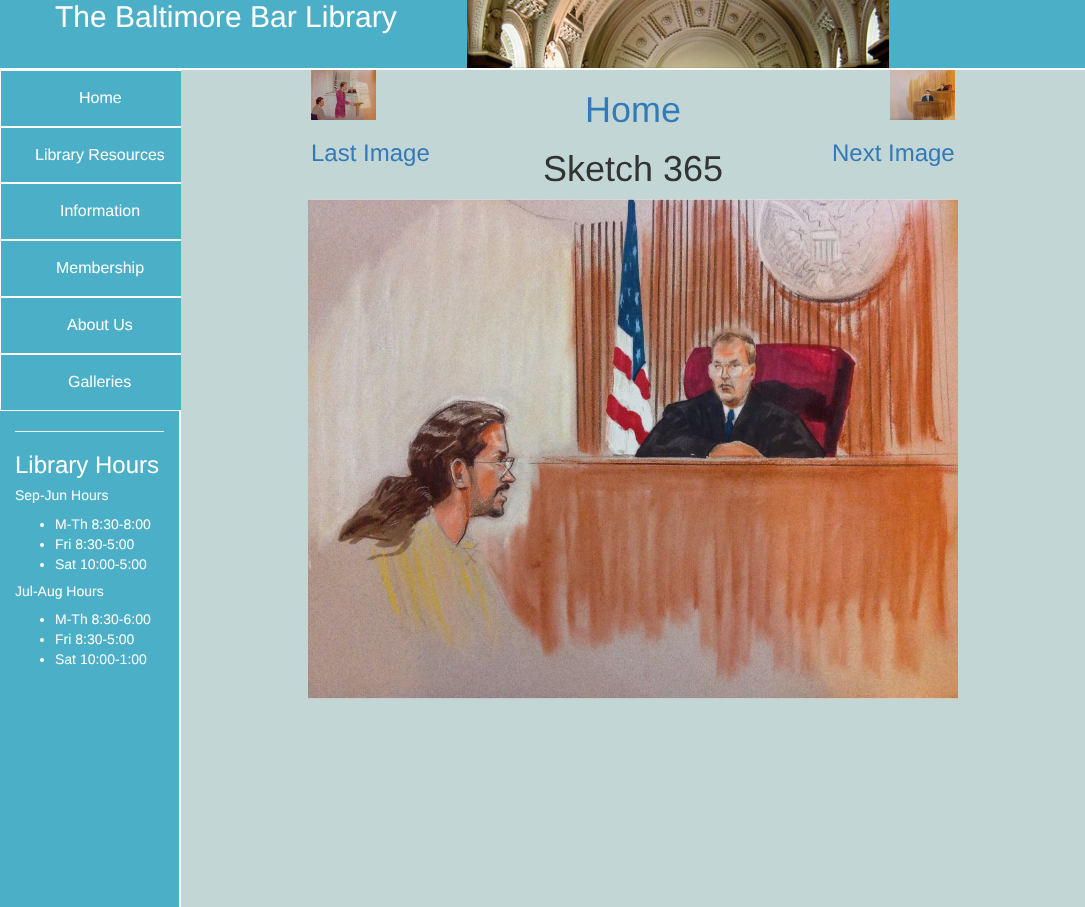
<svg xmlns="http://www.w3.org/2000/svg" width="1085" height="907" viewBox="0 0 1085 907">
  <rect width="100%" height="100%" fill="#4cafc8"/>
  <rect x="0" y="68" width="1085" height="2" fill="#ffffff"/>
  <text x="55" y="27" font-family="Liberation Sans" font-size="30" fill="#ffffff">The Baltimore Bar Library</text>
  <image x="467" y="0" width="422" height="68" href="img1.png"/>
  <rect x="179" y="411" width="2" height="496" fill="#ffffff"/>
  <rect x="0.5" y="70.5" width="199" height="56" fill="none" stroke="#ffffff"/>
  <text x="79" y="103" font-family="Liberation Sans" font-size="16" fill="#ffffff">Home</text>
  <rect x="0.5" y="127.5" width="199" height="55" fill="none" stroke="#ffffff"/>
  <text x="35" y="160" font-family="Liberation Sans" font-size="16" fill="#ffffff">Library Resources</text>
  <rect x="0.5" y="183.5" width="199" height="56" fill="none" stroke="#ffffff"/>
  <text x="60" y="216" font-family="Liberation Sans" font-size="16" fill="#ffffff">Information</text>
  <rect x="0.5" y="240.5" width="199" height="56" fill="none" stroke="#ffffff"/>
  <text x="56" y="273" font-family="Liberation Sans" font-size="16" fill="#ffffff">Membership</text>
  <rect x="0.5" y="297.5" width="199" height="56" fill="none" stroke="#ffffff"/>
  <text x="67" y="330" font-family="Liberation Sans" font-size="16" fill="#ffffff">About Us</text>
  <rect x="0.5" y="354.5" width="199" height="56" fill="none" stroke="#ffffff"/>
  <text x="68" y="387" font-family="Liberation Sans" font-size="16" fill="#ffffff">Galleries</text>
  <rect x="15" y="431" width="149" height="1" fill="#eeeeee"/>
  <text x="15" y="473" font-family="Liberation Sans" font-size="24" fill="#ffffff">Library Hours</text>
  <text x="15" y="500" font-family="Liberation Sans" font-size="14" fill="#ffffff">Sep-Jun Hours</text>
  <circle cx="42" cy="525" r="2" fill="#ffffff"/>
  <text x="55" y="529" font-family="Liberation Sans" font-size="14" fill="#ffffff">M-Th 8:30-8:00</text>
  <circle cx="42" cy="545" r="2" fill="#ffffff"/>
  <text x="55" y="549" font-family="Liberation Sans" font-size="14" fill="#ffffff">Fri 8:30-5:00</text>
  <circle cx="42" cy="565" r="2" fill="#ffffff"/>
  <text x="55" y="569" font-family="Liberation Sans" font-size="14" fill="#ffffff">Sat 10:00-5:00</text>
  <text x="15" y="596" font-family="Liberation Sans" font-size="14" fill="#ffffff">Jul-Aug Hours</text>
  <circle cx="42" cy="620" r="2" fill="#ffffff"/>
  <text x="55" y="624" font-family="Liberation Sans" font-size="14" fill="#ffffff">M-Th 8:30-6:00</text>
  <circle cx="42" cy="640" r="2" fill="#ffffff"/>
  <text x="55" y="644" font-family="Liberation Sans" font-size="14" fill="#ffffff">Fri 8:30-5:00</text>
  <circle cx="42" cy="660" r="2" fill="#ffffff"/>
  <text x="55" y="664" font-family="Liberation Sans" font-size="14" fill="#ffffff">Sat 10:00-1:00</text>
  <rect x="181" y="70" width="904" height="837" fill="#c2d6d6"/>
  <image x="311" y="70" width="65" height="50" href="img2.png"/>
  <text x="311" y="161" font-family="Liberation Sans" font-size="24" fill="#337ab7">Last Image</text>
  <text x="585" y="122" font-family="Liberation Sans" font-size="36" fill="#337ab7">Home</text>
  <text x="543" y="181" font-family="Liberation Sans" font-size="36" fill="#333333">Sketch 365</text>
  <image x="890" y="70" width="65" height="50" href="img3.png"/>
  <text x="832" y="161" font-family="Liberation Sans" font-size="24" fill="#337ab7">Next Image</text>
  <image x="308" y="199" width="650" height="500" href="img4.png"/>
</svg>
